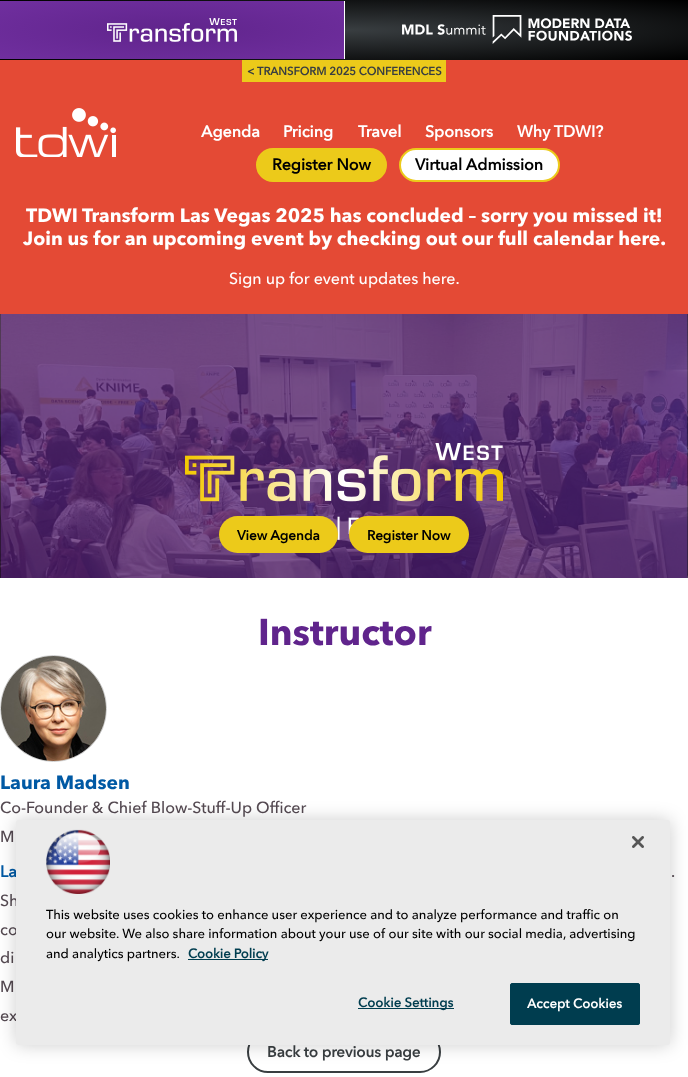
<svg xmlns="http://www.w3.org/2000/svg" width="688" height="1077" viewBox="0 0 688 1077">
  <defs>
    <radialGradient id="g1" gradientUnits="userSpaceOnUse" cx="0" cy="0" r="1" gradientTransform="matrix(486 0 0 42 344 30)"><stop offset="0" stop-color="#393e41"/><stop offset="1" stop-color="#000000"/></radialGradient>
    <radialGradient id="g2" gradientUnits="userSpaceOnUse" cx="0" cy="0" r="1" gradientTransform="matrix(243 0 0 41 172 30)"><stop offset="0" stop-color="#60248c"/><stop offset="1" stop-color="#702f9f"/></radialGradient>
    <filter id="blur1" x="-50%" y="-200%" width="200%" height="500%"><feGaussianBlur stdDeviation="9"/></filter>
  </defs>
  <rect width="100%" height="100%" fill="#ffffff"/>
  <rect x="0" y="0" width="688" height="60" fill="url(#g1)"/>
  <rect x="0" y="1" width="344" height="58" fill="url(#g2)"/>
  <image x="107" y="18" width="130" height="24" href="img1.png"/>
  <image x="402" y="15" width="230" height="29" href="img2.png"/>
  <rect x="344" y="1" width="1" height="58" fill="#ffffff"/>
  <rect x="0" y="60" width="688" height="254" fill="#e44a35"/>
  <rect x="242" y="60" width="204" height="22" fill="#ecca1a"/>
  <text x="247" y="75" font-family="'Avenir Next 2'" font-size="11.25" font-weight="bold" fill="#393e41">&lt; TRANSFORM 2025 CONFERENCES</text>
  <image x="16" y="108" width="100" height="49" href="img3.png"/>
  <text x="201" y="137" font-family="'Avenir Next 2'" font-size="16" font-weight="bold" fill="#ffffff">Agenda</text>
  <text x="283" y="137" font-family="'Avenir Next 2'" font-size="16" font-weight="bold" fill="#ffffff">Pricing</text>
  <text x="358" y="137" font-family="'Avenir Next 2'" font-size="16" font-weight="bold" fill="#ffffff">Travel</text>
  <text x="425" y="137" font-family="'Avenir Next 2'" font-size="16" font-weight="bold" fill="#ffffff">Sponsors</text>
  <text x="517" y="137" font-family="'Avenir Next 2'" font-size="16" font-weight="bold" fill="#ffffff">Why TDWI?</text>
  <rect x="257" y="149" width="129" height="32" rx="16" fill="#ecca1a" stroke="#ecca1a" stroke-width="2"/>
  <text x="272" y="170" font-family="'Avenir Next 2'" font-size="16" font-weight="bold" fill="#000000">Register Now</text>
  <rect x="400" y="149" width="159" height="32" rx="16" fill="#ffffff" stroke="#ecca1a" stroke-width="2"/>
  <text x="415" y="170" font-family="'Avenir Next 2'" font-size="16" font-weight="bold" fill="#000000">Virtual Admission</text>
  <text x="26" y="222" font-family="Avenir Next" font-size="19.2" font-weight="bold" fill="#ffffff">TDWI Transform Las Vegas 2025 has concluded – sorry you missed it!</text>
  <text x="23" y="245" font-family="Avenir Next" font-size="19.2" font-weight="bold" fill="#ffffff">Join us for an upcoming event by checking out our full calendar here.</text>
  <text x="229" y="284" font-family="Avenir Next" font-size="16" font-weight="500" fill="#ffffff">Sign up for event updates here.</text>
  <image x="0" y="314" width="688" height="264" href="img4.png"/>
  <image x="185" y="443" width="318" height="59" href="img5.png"/>
  <text x="336" y="534" font-family="Avenir Next" font-size="23" font-weight="500" fill="#ffffff">| F</text>
  <rect x="219" y="516" width="119" height="37" rx="18.5" fill="#ecca1a"/>
  <text x="237" y="540" font-family="'Avenir Next 2'" font-size="13.5" font-weight="bold" fill="#000000">View Agenda</text>
  <rect x="349" y="516" width="120" height="37" rx="18.5" fill="#ecca1a"/>
  <text x="367" y="540" font-family="'Avenir Next 2'" font-size="13.5" font-weight="bold" fill="#000000">Register Now</text>
  <text x="258" y="645" font-family="Avenir Next" font-size="37" font-weight="bold" fill="#60248c">Instructor</text>
  <circle cx="53.5" cy="708.5" r="53" fill="none" stroke="#cccccc"/>
  <image x="1" y="656" width="105" height="105" href="img6.png"/>
  <text x="0" y="789" font-family="Avenir Next" font-size="19.2" font-weight="bold" fill="#0059a4">Laura Madsen</text>
  <text x="0" y="813" font-family="Avenir Next" font-size="16" font-weight="500" fill="#544951">Co-Founder &amp; Chief Blow-Stuff-Up Officer</text>
  <text x="0" y="842" font-family="Avenir Next" font-size="16" font-weight="500" fill="#544951">M</text>
  <text x="0" y="877" font-family="'Avenir Next 2'" font-size="16" font-weight="bold" fill="#0059a4">La</text>
  <text x="671" y="877" font-family="Avenir Next" font-size="16" font-weight="500" fill="#544951">.</text>
  <text x="0" y="906" font-family="Avenir Next" font-size="16" font-weight="500" fill="#544951">Sh</text>
  <text x="0" y="935" font-family="Avenir Next" font-size="16" font-weight="500" fill="#544951">co</text>
  <text x="0" y="963" font-family="Avenir Next" font-size="16" font-weight="500" fill="#544951">di</text>
  <text x="0" y="992" font-family="Avenir Next" font-size="16" font-weight="500" fill="#544951">M</text>
  <text x="0" y="1021" font-family="Avenir Next" font-size="16" font-weight="500" fill="#544951">ex</text>
  <rect x="248" y="1032" width="192" height="40" rx="20" fill="none" stroke="#393e41" stroke-width="2"/>
  <text x="267" y="1057" font-family="'Avenir Next 2'" font-size="15" font-weight="bold" fill="#393e41">Back to previous page</text>
  <rect x="16" y="820" width="654" height="225" rx="2.5" fill="#000000" fill-opacity="0.2" filter="url(#blur1)"/>
  <rect x="16" y="820" width="654" height="225" rx="2.5" fill="#ebebeb"/>
  <image x="632" y="836" width="12" height="12" href="img7.png"/>
  <image x="46" y="829" width="64" height="65" href="img8.png"/>
  <text x="46" y="919" font-family="Avenir Next" font-size="13" font-weight="500" fill="#000000">This website uses cookies to enhance user experience and to analyze performance and traffic on</text>
  <text x="46" y="938" font-family="Avenir Next" font-size="13" font-weight="500" fill="#000000">our website. We also share information about your use of our site with our social media, advertising</text>
  <text x="46" y="958" font-family="Avenir Next" font-size="13" font-weight="500" fill="#000000">and analytics partners.</text>
  <rect x="188" y="959" width="80" height="1" fill="#003d4f"/>
  <text x="188" y="958" font-family="'Avenir Next 2'" font-size="13" font-weight="bold" fill="#003d4f">Cookie Policy</text>
  <rect x="358" y="1008" width="96" height="1" fill="#003d4f"/>
  <text x="358" y="1007" font-family="'Avenir Next 2'" font-size="13" font-weight="bold" letter-spacing="0.1" fill="#003d4f">Cookie Settings</text>
  <rect x="510.5" y="983.5" width="129" height="41" rx="1.5" fill="#003d4f" stroke="#003d4f"/>
  <text x="527" y="1008" font-family="'Avenir Next 2'" font-size="13" font-weight="bold" letter-spacing="0.1" fill="#ffffff">Accept Cookies</text>
</svg>
